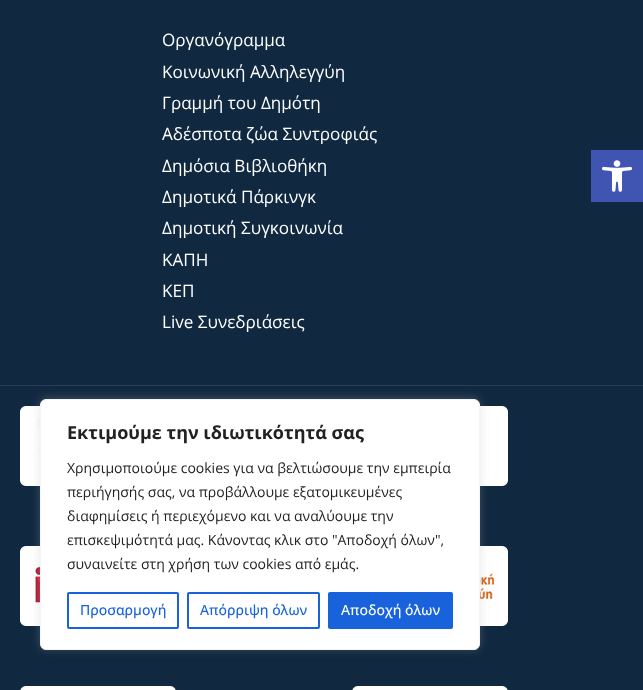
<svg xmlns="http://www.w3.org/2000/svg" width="643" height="690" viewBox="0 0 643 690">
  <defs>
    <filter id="blur1" x="-50%" y="-200%" width="200%" height="500%"><feGaussianBlur stdDeviation="5"/></filter>
  </defs>
  <rect width="100%" height="100%" fill="#102840"/>
  <text x="162" y="46" font-family="Open Sans" font-size="17.1" fill="#ffffff">Οργανόγραμμα</text>
  <text x="162" y="78" font-family="Open Sans" font-size="17.1" fill="#ffffff">Κοινωνική Αλληλεγγύη</text>
  <text x="162" y="109" font-family="Open Sans" font-size="17.1" fill="#ffffff">Γραμμή του Δημότη</text>
  <text x="162" y="140" font-family="Open Sans" font-size="17.1" fill="#ffffff">Αδέσποτα ζώα Συντροφιάς</text>
  <text x="162" y="172" font-family="Open Sans" font-size="17.1" fill="#ffffff">Δημόσια Βιβλιοθήκη</text>
  <text x="162" y="203" font-family="Open Sans" font-size="17.1" fill="#ffffff">Δημοτικά Πάρκινγκ</text>
  <text x="162" y="234" font-family="Open Sans" font-size="17.1" fill="#ffffff">Δημοτική Συγκοινωνία</text>
  <text x="162" y="266" font-family="Open Sans" font-size="17.1" fill="#ffffff">ΚΑΠΗ</text>
  <text x="162" y="297" font-family="Open Sans" font-size="17.1" fill="#ffffff">ΚΕΠ</text>
  <text x="162" y="328" font-family="Open Sans" font-size="17.1" fill="#ffffff">Live Συνεδριάσεις</text>
  <rect x="0" y="385" width="643" height="1" fill="#283e53"/>
  <image x="20" y="406" width="20" height="80" href="img1.png"/>
  <image x="480" y="406" width="28" height="80" href="img2.png"/>
  <image x="20" y="546" width="20" height="80" href="img3.png"/>
  <image x="480" y="546" width="28" height="80" href="img4.png"/>
  <image x="20" y="686" width="156" height="4" href="img5.png"/>
  <image x="352" y="686" width="156" height="4" href="img5.png"/>
  <rect x="591" y="150" width="52" height="52" fill="#4054b2"/>
  <image x="602" y="160" width="30" height="32" href="img6.png"/>
  <rect x="40" y="398" width="440" height="251" rx="6" fill="#acabab" fill-opacity="0.3" filter="url(#blur1)"/>
  <rect x="40.5" y="399.5" width="439" height="250" rx="5.5" fill="#ffffff" stroke="#f4f4f4"/>
  <text x="67" y="439" font-family="Open Sans" font-size="18" font-weight="bold" fill="#212121">Εκτιμούμε την ιδιωτικότητά σας</text>
  <text x="67" y="473" font-family="Open Sans" font-size="14" fill="#212121">Χρησιμοποιούμε cookies για να βελτιώσουμε την εμπειρία</text>
  <text x="67" y="497" font-family="Open Sans" font-size="14" fill="#212121">περιήγησής σας, να προβάλλουμε εξατομικευμένες</text>
  <text x="67" y="521" font-family="Open Sans" font-size="14" fill="#212121">διαφημίσεις ή περιεχόμενο και να αναλύουμε την</text>
  <text x="67" y="545" font-family="Open Sans" font-size="14" fill="#212121">επισκεψιμότητά μας. Κάνοντας κλικ στο "Αποδοχή όλων",</text>
  <text x="67" y="569" font-family="Open Sans" font-size="14" fill="#212121">συναινείτε στη χρήση των cookies από εμάς.</text>
  <rect x="68" y="593" width="110" height="35" rx="1" fill="none" stroke="#1863dc" stroke-width="2"/>
  <text x="80" y="615" font-family="Open Sans" font-size="14" font-weight="500" fill="#1863dc">Προσαρμογή</text>
  <rect x="188" y="593" width="131" height="35" rx="1" fill="none" stroke="#1863dc" stroke-width="2"/>
  <text x="200" y="615" font-family="Open Sans" font-size="14" font-weight="500" fill="#1863dc">Απόρριψη όλων</text>
  <rect x="329" y="593" width="123" height="35" rx="1" fill="#1863dc" stroke="#1863dc" stroke-width="2"/>
  <text x="341" y="615" font-family="Open Sans" font-size="14" font-weight="500" fill="#ffffff">Αποδοχή όλων</text>
</svg>
